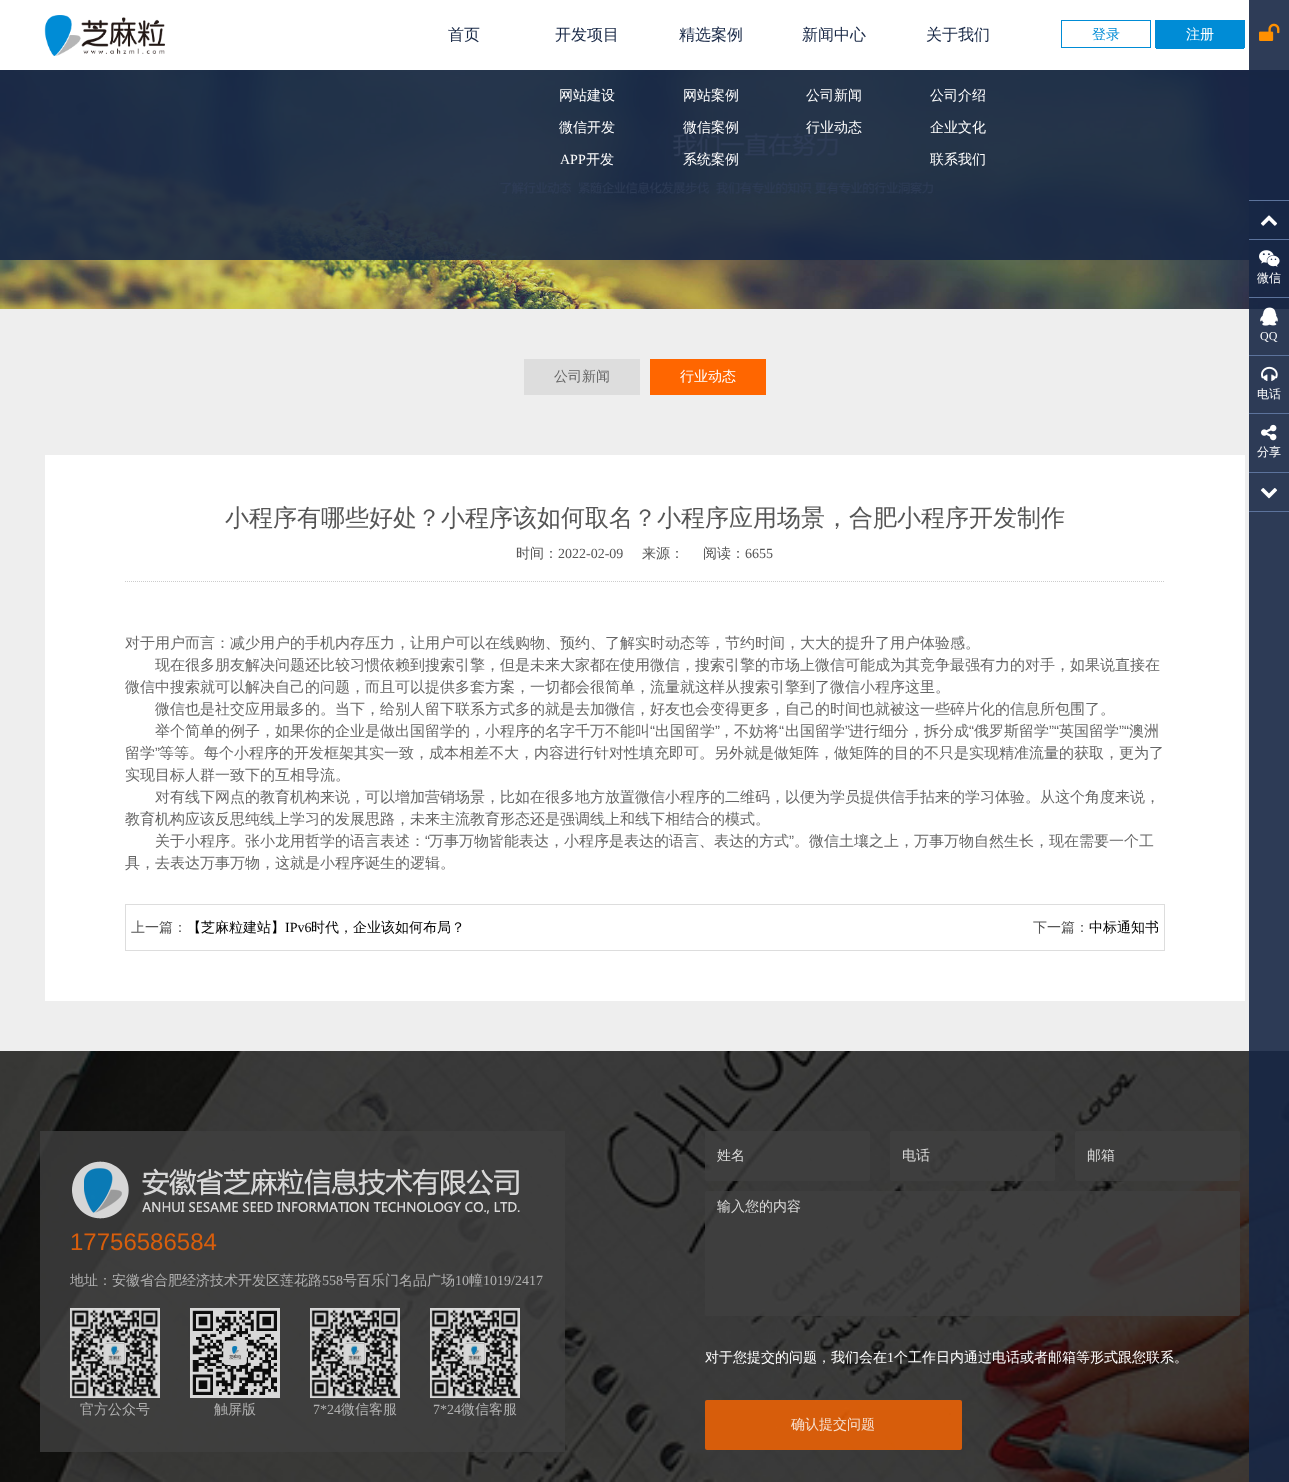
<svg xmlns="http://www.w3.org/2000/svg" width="1289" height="1482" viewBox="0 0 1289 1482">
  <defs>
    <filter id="blur1" x="-50%" y="-200%" width="200%" height="500%"><feGaussianBlur stdDeviation="4"/></filter>
  </defs>
  <rect width="100%" height="100%" fill="#eeeeee"/>
  <image x="0" y="70" width="1289" height="239" href="img2.png"/>
  <rect x="0" y="2" width="1289" height="70" fill="#323232" fill-opacity="0.08" filter="url(#blur1)"/>
  <rect x="0" y="70" width="1289" height="190" fill="#172745" fill-opacity="0.9"/>
  <rect x="0" y="0" width="1289" height="70" fill="#ffffff"/>
  <image x="44" y="15" width="121" height="41" href="img1.png"/>
  <text x="448" y="40" font-family="WenQuanYi Zen Hei" font-size="16" font-weight="500" fill="#172745">首页</text>
  <text x="555" y="40" font-family="WenQuanYi Zen Hei" font-size="16" font-weight="500" fill="#172745">开发项目</text>
  <text x="559" y="100" font-family="WenQuanYi Zen Hei" font-size="14" font-weight="500" fill="#ffffff">网站建设</text>
  <text x="559" y="132" font-family="WenQuanYi Zen Hei" font-size="14" font-weight="500" fill="#ffffff">微信开发</text>
  <text x="560" y="164" font-family="Liberation Serif" font-size="14" fill="#ffffff">APP</text>
  <text x="586" y="164" font-family="WenQuanYi Zen Hei" font-size="14" font-weight="500" fill="#ffffff">开发</text>
  <text x="679" y="40" font-family="WenQuanYi Zen Hei" font-size="16" font-weight="500" fill="#172745">精选案例</text>
  <text x="683" y="100" font-family="WenQuanYi Zen Hei" font-size="14" font-weight="500" fill="#ffffff">网站案例</text>
  <text x="683" y="132" font-family="WenQuanYi Zen Hei" font-size="14" font-weight="500" fill="#ffffff">微信案例</text>
  <text x="683" y="164" font-family="WenQuanYi Zen Hei" font-size="14" font-weight="500" fill="#ffffff">系统案例</text>
  <text x="802" y="40" font-family="WenQuanYi Zen Hei" font-size="16" font-weight="500" fill="#172745">新闻中心</text>
  <text x="806" y="100" font-family="WenQuanYi Zen Hei" font-size="14" font-weight="500" fill="#ffffff">公司新闻</text>
  <text x="806" y="132" font-family="WenQuanYi Zen Hei" font-size="14" font-weight="500" fill="#ffffff">行业动态</text>
  <text x="926" y="40" font-family="WenQuanYi Zen Hei" font-size="16" font-weight="500" fill="#172745">关于我们</text>
  <text x="930" y="100" font-family="WenQuanYi Zen Hei" font-size="14" font-weight="500" fill="#ffffff">公司介绍</text>
  <text x="930" y="132" font-family="WenQuanYi Zen Hei" font-size="14" font-weight="500" fill="#ffffff">企业文化</text>
  <text x="930" y="164" font-family="WenQuanYi Zen Hei" font-size="14" font-weight="500" fill="#ffffff">联系我们</text>
  <rect x="1061.5" y="20.5" width="89" height="27" fill="none" stroke="#008cd6"/>
  <text x="1092" y="39" font-family="WenQuanYi Zen Hei" font-size="14" font-weight="500" fill="#008cd6">登录</text>
  <rect x="1155.5" y="20.5" width="89" height="27" fill="none" stroke="#008cd6"/>
  <rect x="1156" y="21" width="88" height="28" fill="#008cd6"/>
  <text x="1186" y="39" font-family="WenQuanYi Zen Hei" font-size="14" font-weight="500" fill="#ffffff">注册</text>
  <rect x="524" y="359" width="116" height="36" fill="#dddddd"/>
  <text x="554" y="381" font-family="WenQuanYi Zen Hei" font-size="14" font-weight="500" fill="#666666">公司新闻</text>
  <rect x="650" y="359" width="116" height="36" fill="#ff6600"/>
  <text x="680" y="381" font-family="WenQuanYi Zen Hei" font-size="14" font-weight="500" fill="#ffffff">行业动态</text>
  <rect x="45" y="455" width="1200" height="546" fill="#ffffff"/>
  <text x="225" y="526" font-family="WenQuanYi Zen Hei" font-size="24" font-weight="500" fill="#555555">小程序有哪些好处？小程序该如何取名？小程序应用场景，合肥小程序开发制作</text>
  <path d="M125 581.5H1165" fill="none" stroke="#cccccc" stroke-dasharray="1 1"/>
  <text x="516" y="558" font-family="WenQuanYi Zen Hei" font-size="14" font-weight="500" fill="#555555">时间：</text>
  <text x="558" y="558" font-family="Liberation Serif" font-size="14" fill="#555555">2022-02-09</text>
  <text x="642" y="558" font-family="WenQuanYi Zen Hei" font-size="14" font-weight="500" fill="#555555">来源：</text>
  <text x="703" y="558" font-family="WenQuanYi Zen Hei" font-size="14" font-weight="500" fill="#555555">阅读：</text>
  <text x="745" y="558" font-family="Liberation Serif" font-size="14" fill="#555555">6655</text>
  <text x="125" y="648" font-family="WenQuanYi Zen Hei" font-size="15" font-weight="500" fill="#666666">对于用户而言：减少用户的手机内存压力，让用户可以在线购物、预约、了解实时动态等，节约时间，大大的提升了用户体验感。</text>
  <text x="155" y="670" font-family="WenQuanYi Zen Hei" font-size="15" font-weight="500" fill="#666666">现在很多朋友解决问题还比较习惯依赖到搜索引擎，但是未来大家都在使用微信，搜索引擎的市场上微信可能成为其竞争最强有力的对手，如果说直接在</text>
  <text x="125" y="692" font-family="WenQuanYi Zen Hei" font-size="15" font-weight="500" fill="#666666">微信中搜索就可以解决自己的问题，而且可以提供多套方案，一切都会很简单，流量就这样从搜索引擎到了微信小程序这里。</text>
  <text x="155" y="714" font-family="WenQuanYi Zen Hei" font-size="15" font-weight="500" fill="#666666">微信也是社交应用最多的。当下，给别人留下联系方式多的就是去加微信，好友也会变得更多，自己的时间也就被这一些碎片化的信息所包围了。</text>
  <text x="155" y="736" font-family="WenQuanYi Zen Hei" font-size="15" font-weight="500" fill="#666666">举个简单的例子，如果你的企业是做出国留学的，小程序的名字千万不能叫</text>
  <text x="650" y="736" font-family="Liberation Sans" font-size="15" fill="#666666">“</text>
  <text x="655" y="736" font-family="WenQuanYi Zen Hei" font-size="15" font-weight="500" fill="#666666">出国留学</text>
  <text x="715" y="736" font-family="Liberation Sans" font-size="15" fill="#666666">”</text>
  <text x="719" y="736" font-family="WenQuanYi Zen Hei" font-size="15" font-weight="500" fill="#666666">，不妨将</text>
  <text x="779" y="736" font-family="Liberation Sans" font-size="15" fill="#666666">“</text>
  <text x="785" y="736" font-family="WenQuanYi Zen Hei" font-size="15" font-weight="500" fill="#666666">出国留学</text>
  <text x="845" y="736" font-family="Liberation Sans" font-size="15" fill="#666666">”</text>
  <text x="849" y="736" font-family="WenQuanYi Zen Hei" font-size="15" font-weight="500" fill="#666666">进行细分，拆分成</text>
  <text x="969" y="736" font-family="Liberation Sans" font-size="15" fill="#666666">“</text>
  <text x="974" y="736" font-family="WenQuanYi Zen Hei" font-size="15" font-weight="500" fill="#666666">俄罗斯留学</text>
  <text x="1049" y="736" font-family="Liberation Sans" font-size="15" fill="#666666">”“</text>
  <text x="1059" y="736" font-family="WenQuanYi Zen Hei" font-size="15" font-weight="500" fill="#666666">英国留学</text>
  <text x="1119" y="736" font-family="Liberation Sans" font-size="15" fill="#666666">”“</text>
  <text x="1129" y="736" font-family="WenQuanYi Zen Hei" font-size="15" font-weight="500" fill="#666666">澳洲</text>
  <text x="125" y="758" font-family="WenQuanYi Zen Hei" font-size="15" font-weight="500" fill="#666666">留学</text>
  <text x="155" y="758" font-family="Liberation Sans" font-size="15" fill="#666666">”</text>
  <text x="159" y="758" font-family="WenQuanYi Zen Hei" font-size="15" font-weight="500" fill="#666666">等等。每个小程序的开发框架其实一致，成本相差不大，内容进行针对性填充即可。另外就是做矩阵，做矩阵的目的不只是实现精准流量的获取，更为了</text>
  <text x="125" y="780" font-family="WenQuanYi Zen Hei" font-size="15" font-weight="500" fill="#666666">实现目标人群一致下的互相导流。</text>
  <text x="155" y="802" font-family="WenQuanYi Zen Hei" font-size="15" font-weight="500" fill="#666666">对有线下网点的教育机构来说，可以增加营销场景，比如在很多地方放置微信小程序的二维码，以便为学员提供信手拈来的学习体验。从这个角度来说，</text>
  <text x="125" y="824" font-family="WenQuanYi Zen Hei" font-size="15" font-weight="500" fill="#666666">教育机构应该反思纯线上学习的发展思路，未来主流教育形态还是强调线上和线下相结合的模式。</text>
  <text x="155" y="846" font-family="WenQuanYi Zen Hei" font-size="15" font-weight="500" fill="#666666">关于小程序。张小龙用哲学的语言表述：</text>
  <text x="425" y="846" font-family="Liberation Sans" font-size="15" fill="#666666">“</text>
  <text x="429" y="846" font-family="WenQuanYi Zen Hei" font-size="15" font-weight="500" fill="#666666">万事万物皆能表达，小程序是表达的语言、表达的方式</text>
  <text x="789" y="846" font-family="Liberation Sans" font-size="15" fill="#666666">”</text>
  <text x="794" y="846" font-family="WenQuanYi Zen Hei" font-size="15" font-weight="500" fill="#666666">。微信土壤之上，万事万物自然生长，现在需要一个工</text>
  <text x="125" y="868" font-family="WenQuanYi Zen Hei" font-size="15" font-weight="500" fill="#666666">具，去表达万事万物，这就是小程序诞生的逻辑。</text>
  <rect x="125.5" y="904.5" width="1039" height="46" fill="none" stroke="#dddddd"/>
  <text x="131" y="932" font-family="WenQuanYi Zen Hei" font-size="14" font-weight="500" fill="#555555">上一篇：</text>
  <text x="187" y="932" font-family="WenQuanYi Zen Hei" font-size="14" font-weight="500" fill="#000000">【芝麻粒建站】</text>
  <text x="285" y="932" font-family="Liberation Serif" font-size="14" fill="#000000">IPv6</text>
  <text x="311" y="932" font-family="WenQuanYi Zen Hei" font-size="14" font-weight="500" fill="#000000">时代，企业该如何布局？</text>
  <text x="1033" y="932" font-family="WenQuanYi Zen Hei" font-size="14" font-weight="500" fill="#555555">下一篇：</text>
  <text x="1089" y="932" font-family="WenQuanYi Zen Hei" font-size="14" font-weight="500" fill="#000000">中标通知书</text>
  <image x="0" y="1051" width="1289" height="431" href="img10.png"/>
  <rect x="1249" y="0" width="40" height="1482" fill="#172745" fill-opacity="0.9"/>
  <image x="1259" y="23" width="21" height="18" href="img3.png"/>
  <rect x="1249" y="200" width="40" height="1" fill="#5c739c"/>
  <rect x="1249" y="239" width="40" height="1" fill="#5c739c"/>
  <image x="1260" y="215" width="18" height="11" href="img4.png"/>
  <rect x="1249" y="297" width="40" height="1" fill="#5c739c"/>
  <image x="1259" y="250" width="21" height="17" href="img5.png"/>
  <text x="1257" y="282" font-family="WenQuanYi Zen Hei" font-size="12" font-weight="500" fill="#ffffff">微信</text>
  <rect x="1249" y="355" width="40" height="1" fill="#5c739c"/>
  <image x="1260" y="307" width="18" height="19" href="img6.png"/>
  <text x="1260" y="340" font-family="Liberation Serif" font-size="12" fill="#ffffff">QQ</text>
  <rect x="1249" y="413" width="40" height="1" fill="#5c739c"/>
  <image x="1261" y="366" width="17" height="15" href="img7.png"/>
  <text x="1257" y="398" font-family="WenQuanYi Zen Hei" font-size="12" font-weight="500" fill="#ffffff">电话</text>
  <rect x="1249" y="472" width="40" height="1" fill="#5c739c"/>
  <image x="1261" y="424" width="16" height="17" href="img8.png"/>
  <text x="1257" y="456" font-family="WenQuanYi Zen Hei" font-size="12" font-weight="500" fill="#ffffff">分享</text>
  <rect x="1249" y="511" width="40" height="1" fill="#5c739c"/>
  <image x="1260" y="488" width="18" height="11" href="img9.png"/>
  <rect x="40" y="1131" width="525" height="321" fill="#404040" fill-opacity="0.8"/>
  <image x="72" y="1161" width="448" height="58" href="img11.png"/>
  <text x="70" y="1250" font-family="Liberation Sans" font-size="24" fill="#d85e0c">17756586584</text>
  <text x="70" y="1285" font-family="WenQuanYi Zen Hei" font-size="14" font-weight="500" fill="#b0b0b0">地址：安徽省合肥经济技术开发区莲花路</text>
  <text x="322" y="1285" font-family="Liberation Serif" font-size="14" fill="#b0b0b0">558</text>
  <text x="343" y="1285" font-family="WenQuanYi Zen Hei" font-size="14" font-weight="500" fill="#b0b0b0">号百乐门名品广场</text>
  <text x="455" y="1285" font-family="Liberation Serif" font-size="14" fill="#b0b0b0">10</text>
  <text x="469" y="1285" font-family="WenQuanYi Zen Hei" font-size="14" font-weight="500" fill="#b0b0b0">幢</text>
  <text x="483" y="1285" font-family="Liberation Serif" font-size="14" fill="#b0b0b0">1019/2417</text>
  <image x="70" y="1308" width="90" height="90" href="img12.png"/>
  <text x="80" y="1414" font-family="WenQuanYi Zen Hei" font-size="14" font-weight="500" fill="#b0b0b0">官方公众号</text>
  <image x="190" y="1308" width="90" height="90" href="img13.png"/>
  <text x="214" y="1414" font-family="WenQuanYi Zen Hei" font-size="14" font-weight="500" fill="#b0b0b0">触屏版</text>
  <image x="310" y="1308" width="90" height="90" href="img14.png"/>
  <text x="313" y="1414" font-family="Liberation Serif" font-size="14" fill="#b0b0b0">7*24</text>
  <text x="341" y="1414" font-family="WenQuanYi Zen Hei" font-size="14" font-weight="500" fill="#b0b0b0">微信客服</text>
  <image x="430" y="1308" width="90" height="90" href="img15.png"/>
  <text x="433" y="1414" font-family="Liberation Serif" font-size="14" fill="#b0b0b0">7*24</text>
  <text x="461" y="1414" font-family="WenQuanYi Zen Hei" font-size="14" font-weight="500" fill="#b0b0b0">微信客服</text>
  <rect x="705" y="1131" width="165" height="50" rx="2" fill="#404040" fill-opacity="0.8"/>
  <text x="717" y="1160" font-family="WenQuanYi Zen Hei" font-size="14" font-weight="500" fill="#d9d9d8">姓名</text>
  <rect x="890" y="1131" width="165" height="50" rx="2" fill="#404040" fill-opacity="0.8"/>
  <text x="902" y="1160" font-family="WenQuanYi Zen Hei" font-size="14" font-weight="500" fill="#d9d9d8">电话</text>
  <rect x="1075" y="1131" width="165" height="50" rx="2" fill="#404040" fill-opacity="0.8"/>
  <text x="1087" y="1160" font-family="WenQuanYi Zen Hei" font-size="14" font-weight="500" fill="#d9d9d8">邮箱</text>
  <rect x="705" y="1191" width="535" height="125" rx="2" fill="#404040" fill-opacity="0.8"/>
  <text x="717" y="1211" font-family="WenQuanYi Zen Hei" font-size="14" font-weight="500" fill="#d9d9d8">输入您的内容</text>
  <text x="705" y="1362" font-family="WenQuanYi Zen Hei" font-size="14" font-weight="500" fill="#ffffff">对于您提交的问题，我们会在</text>
  <text x="887" y="1362" font-family="Liberation Serif" font-size="14" fill="#ffffff">1</text>
  <text x="894" y="1362" font-family="WenQuanYi Zen Hei" font-size="14" font-weight="500" fill="#ffffff">个工作日内通过电话或者邮箱等形式跟您联系。</text>
  <rect x="705" y="1400" width="257" height="50" rx="2" fill="#ff6600" fill-opacity="0.8"/>
  <text x="791" y="1429" font-family="WenQuanYi Zen Hei" font-size="14" font-weight="500" fill="#f7dfce">确认提交问题</text>
</svg>
